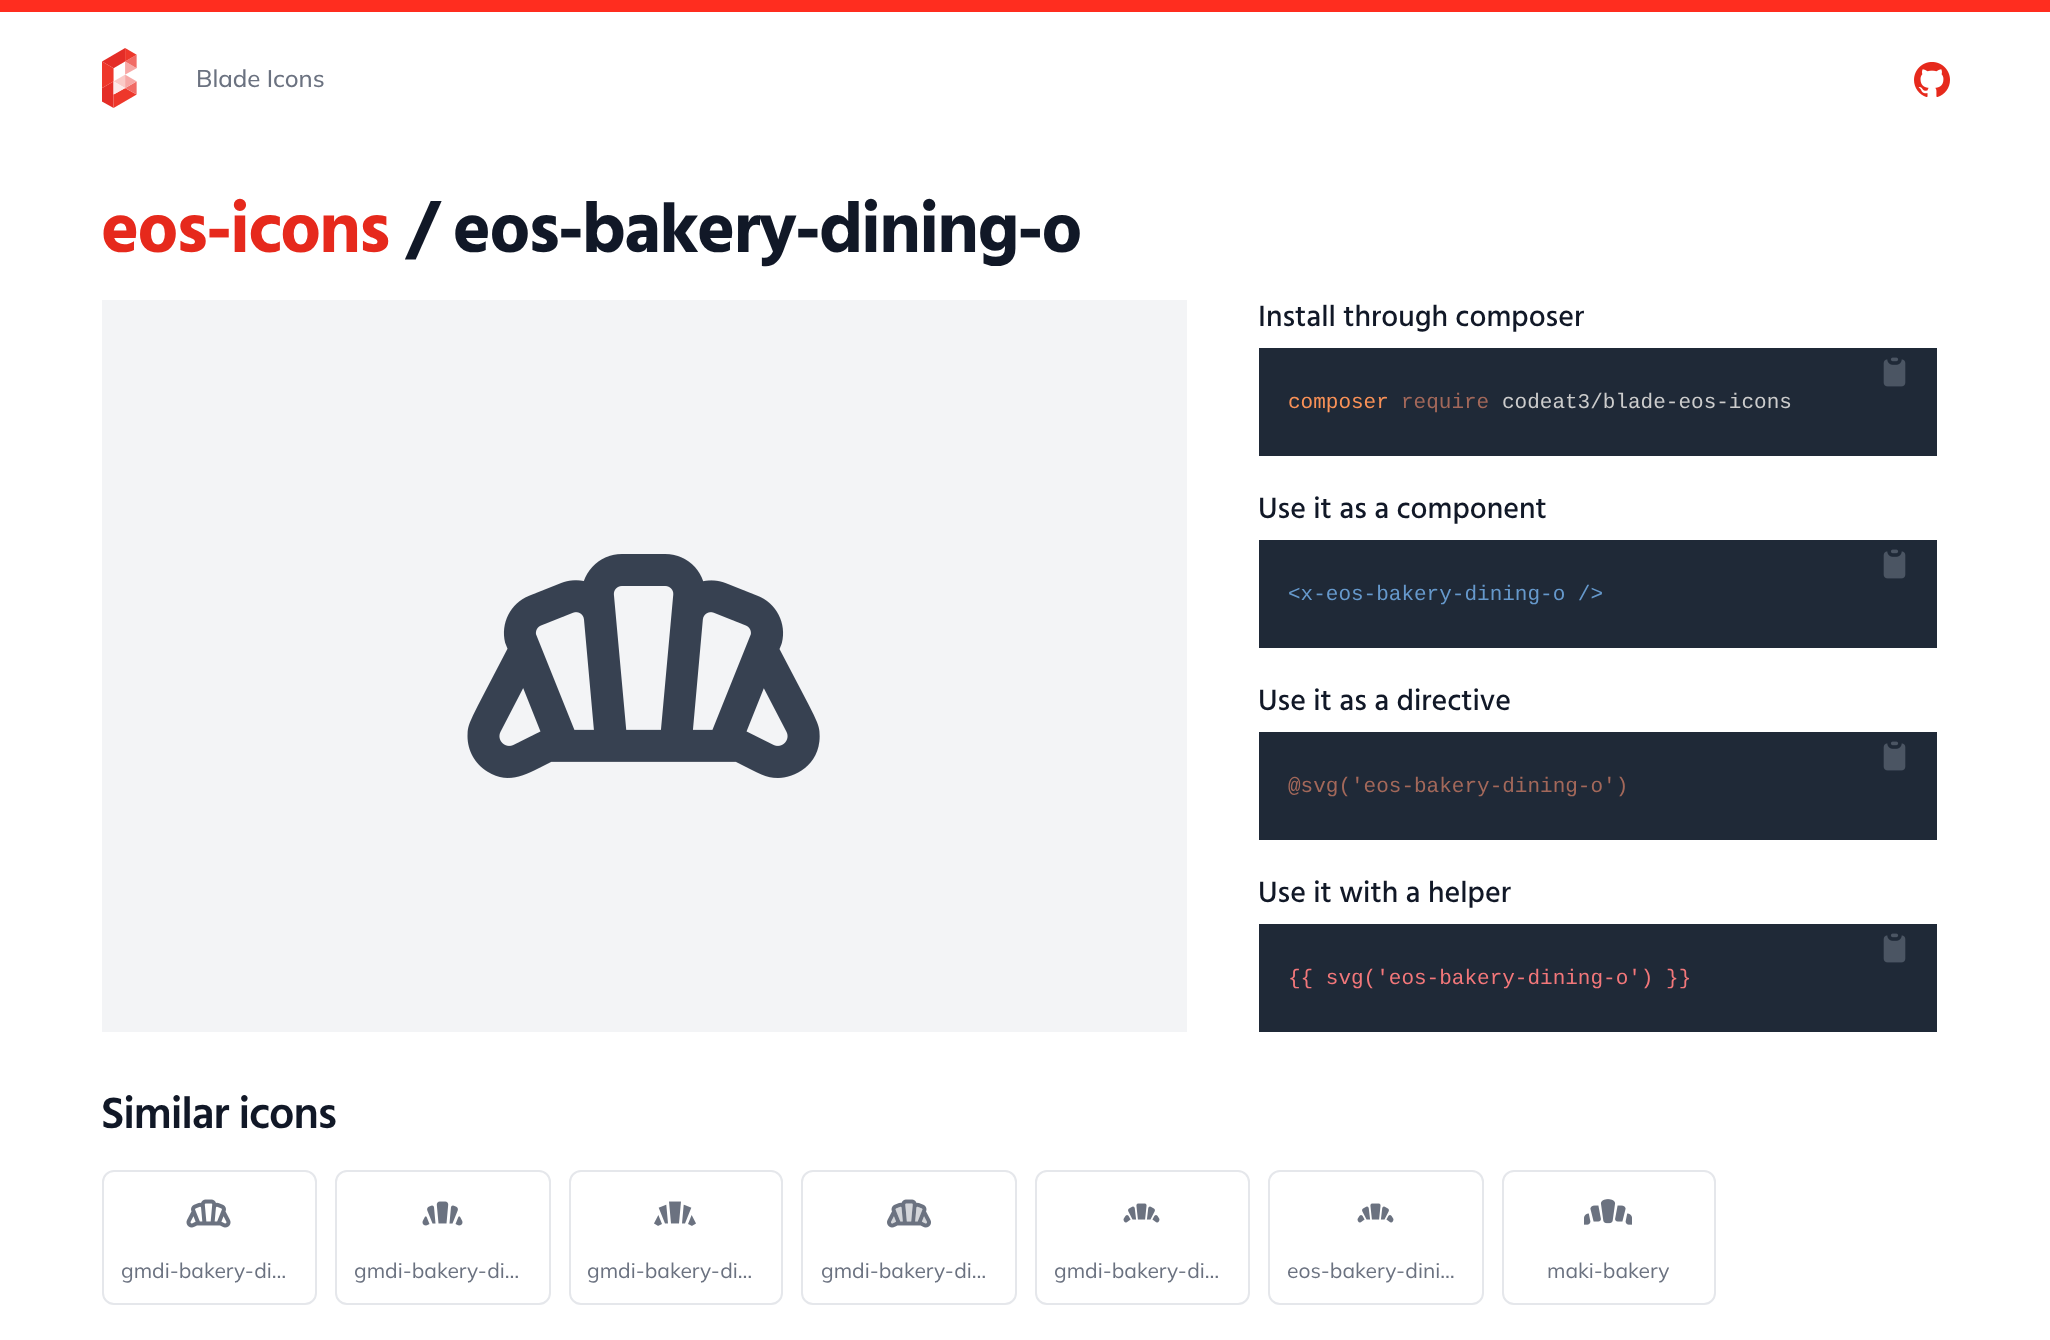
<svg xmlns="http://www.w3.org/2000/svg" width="2050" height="1340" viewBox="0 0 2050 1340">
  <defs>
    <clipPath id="clip1"><rect x="122" y="1256" width="175" height="30"/></clipPath>
    <clipPath id="clip2"><rect x="1055" y="1256" width="175" height="30"/></clipPath>
  </defs>
  <rect width="100%" height="100%" fill="#ffffff"/>
  <rect x="0" y="0" width="2050" height="12" fill="#ff2d1f"/>
  <image x="102" y="48" width="35" height="60" href="img1.png"/>
  <text x="196" y="87" font-family="Mulish" font-size="24" font-weight="500" fill="#6b7280">Blade Icons</text>
  <image x="1914" y="62" width="36" height="35" href="img2.png"/>
  <text x="101" y="252" font-family="Hind" font-size="72" font-weight="bold" letter-spacing="-1.8" fill="#e6291c">eos-icons</text>
  <text x="405" y="252" font-family="Hind" font-size="72" font-weight="bold" letter-spacing="-1.8" fill="#111827">/ eos-bakery-dining-o</text>
  <rect x="102" y="300" width="1085" height="732" fill="#f3f4f6"/>
  <image x="467" y="554" width="353" height="224" href="img3.png"/>
  <text x="1258" y="326" font-family="Hind" font-size="30" font-weight="500" fill="#111827">Install through composer</text>
  <rect x="1259" y="348" width="678" height="108" fill="#1f2937"/>
  <image x="1883" y="357" width="23" height="30" href="img4.png"/>
  <text x="1288" y="408" font-family="Liberation Mono" font-size="21" fill="#f99157">composer</text>
  <text x="1401" y="408" font-family="Liberation Mono" font-size="21" fill="#a3685a">require</text>
  <text x="1502" y="408" font-family="Liberation Mono" font-size="21" fill="#cccccc">codeat3/blade-eos-icons</text>
  <text x="1258" y="518" font-family="Hind" font-size="30" font-weight="500" fill="#111827">Use it as a component</text>
  <rect x="1259" y="540" width="678" height="108" fill="#1f2937"/>
  <image x="1883" y="549" width="23" height="30" href="img4.png"/>
  <text x="1288" y="600" font-family="Liberation Mono" font-size="21" fill="#6699cc">&lt;x-eos-bakery-dining-o /&gt;</text>
  <text x="1258" y="710" font-family="Hind" font-size="30" font-weight="500" fill="#111827">Use it as a directive</text>
  <rect x="1259" y="732" width="678" height="108" fill="#1f2937"/>
  <image x="1883" y="741" width="23" height="30" href="img4.png"/>
  <text x="1288" y="792" font-family="Liberation Mono" font-size="21" fill="#a3685a">@svg('eos-bakery-dining-o')</text>
  <text x="1258" y="902" font-family="Hind" font-size="30" font-weight="500" fill="#111827">Use it with a helper</text>
  <rect x="1259" y="924" width="678" height="108" fill="#1f2937"/>
  <image x="1883" y="933" width="23" height="30" href="img4.png"/>
  <text x="1288" y="984" font-family="Liberation Mono" font-size="21" fill="#f2777a">{{ svg('eos-bakery-dining-o') }}</text>
  <text x="101" y="1128" font-family="Hind" font-size="45" font-weight="600" letter-spacing="-1.1" fill="#111827">Similar icons</text>
  <rect x="103" y="1171" width="213" height="133" rx="11" fill="none" stroke="#e5e7eb" stroke-width="2"/>
  <image x="186" y="1199" width="45" height="29" href="img5.png"/>
  <g clip-path="url(#clip1)">
    <text x="121" y="1278" font-family="Mulish" font-size="21" fill="#6b7280">gmdi-bakery-di…</text>
  </g>
  <rect x="336" y="1171" width="214" height="133" rx="11" fill="none" stroke="#e5e7eb" stroke-width="2"/>
  <image x="422" y="1201" width="41" height="25" href="img6.png"/>
  <text x="354" y="1278" font-family="Mulish" font-size="21" fill="#6b7280">gmdi-bakery-di…</text>
  <rect x="570" y="1171" width="212" height="133" rx="11" fill="none" stroke="#e5e7eb" stroke-width="2"/>
  <image x="654" y="1201" width="42" height="25" href="img7.png"/>
  <text x="587" y="1278" font-family="Mulish" font-size="21" fill="#6b7280">gmdi-bakery-di…</text>
  <rect x="802" y="1171" width="214" height="133" rx="11" fill="none" stroke="#e5e7eb" stroke-width="2"/>
  <image x="887" y="1199" width="44" height="29" href="img8.png"/>
  <text x="821" y="1278" font-family="Mulish" font-size="21" fill="#6b7280">gmdi-bakery-di…</text>
  <rect x="1036" y="1171" width="213" height="133" rx="11" fill="none" stroke="#e5e7eb" stroke-width="2"/>
  <image x="1123" y="1203" width="37" height="20" href="img9.png"/>
  <g clip-path="url(#clip2)">
    <text x="1054" y="1278" font-family="Mulish" font-size="21" fill="#6b7280">gmdi-bakery-di…</text>
  </g>
  <rect x="1269" y="1171" width="214" height="133" rx="11" fill="none" stroke="#e5e7eb" stroke-width="2"/>
  <image x="1357" y="1203" width="37" height="20" href="img9.png"/>
  <text x="1287" y="1278" font-family="Mulish" font-size="21" fill="#6b7280">eos-bakery-dini…</text>
  <rect x="1503" y="1171" width="212" height="133" rx="11" fill="none" stroke="#e5e7eb" stroke-width="2"/>
  <image x="1584" y="1199" width="48" height="26" href="img10.png"/>
  <text x="1547" y="1278" font-family="Mulish" font-size="21" fill="#6b7280">maki-bakery</text>
</svg>
